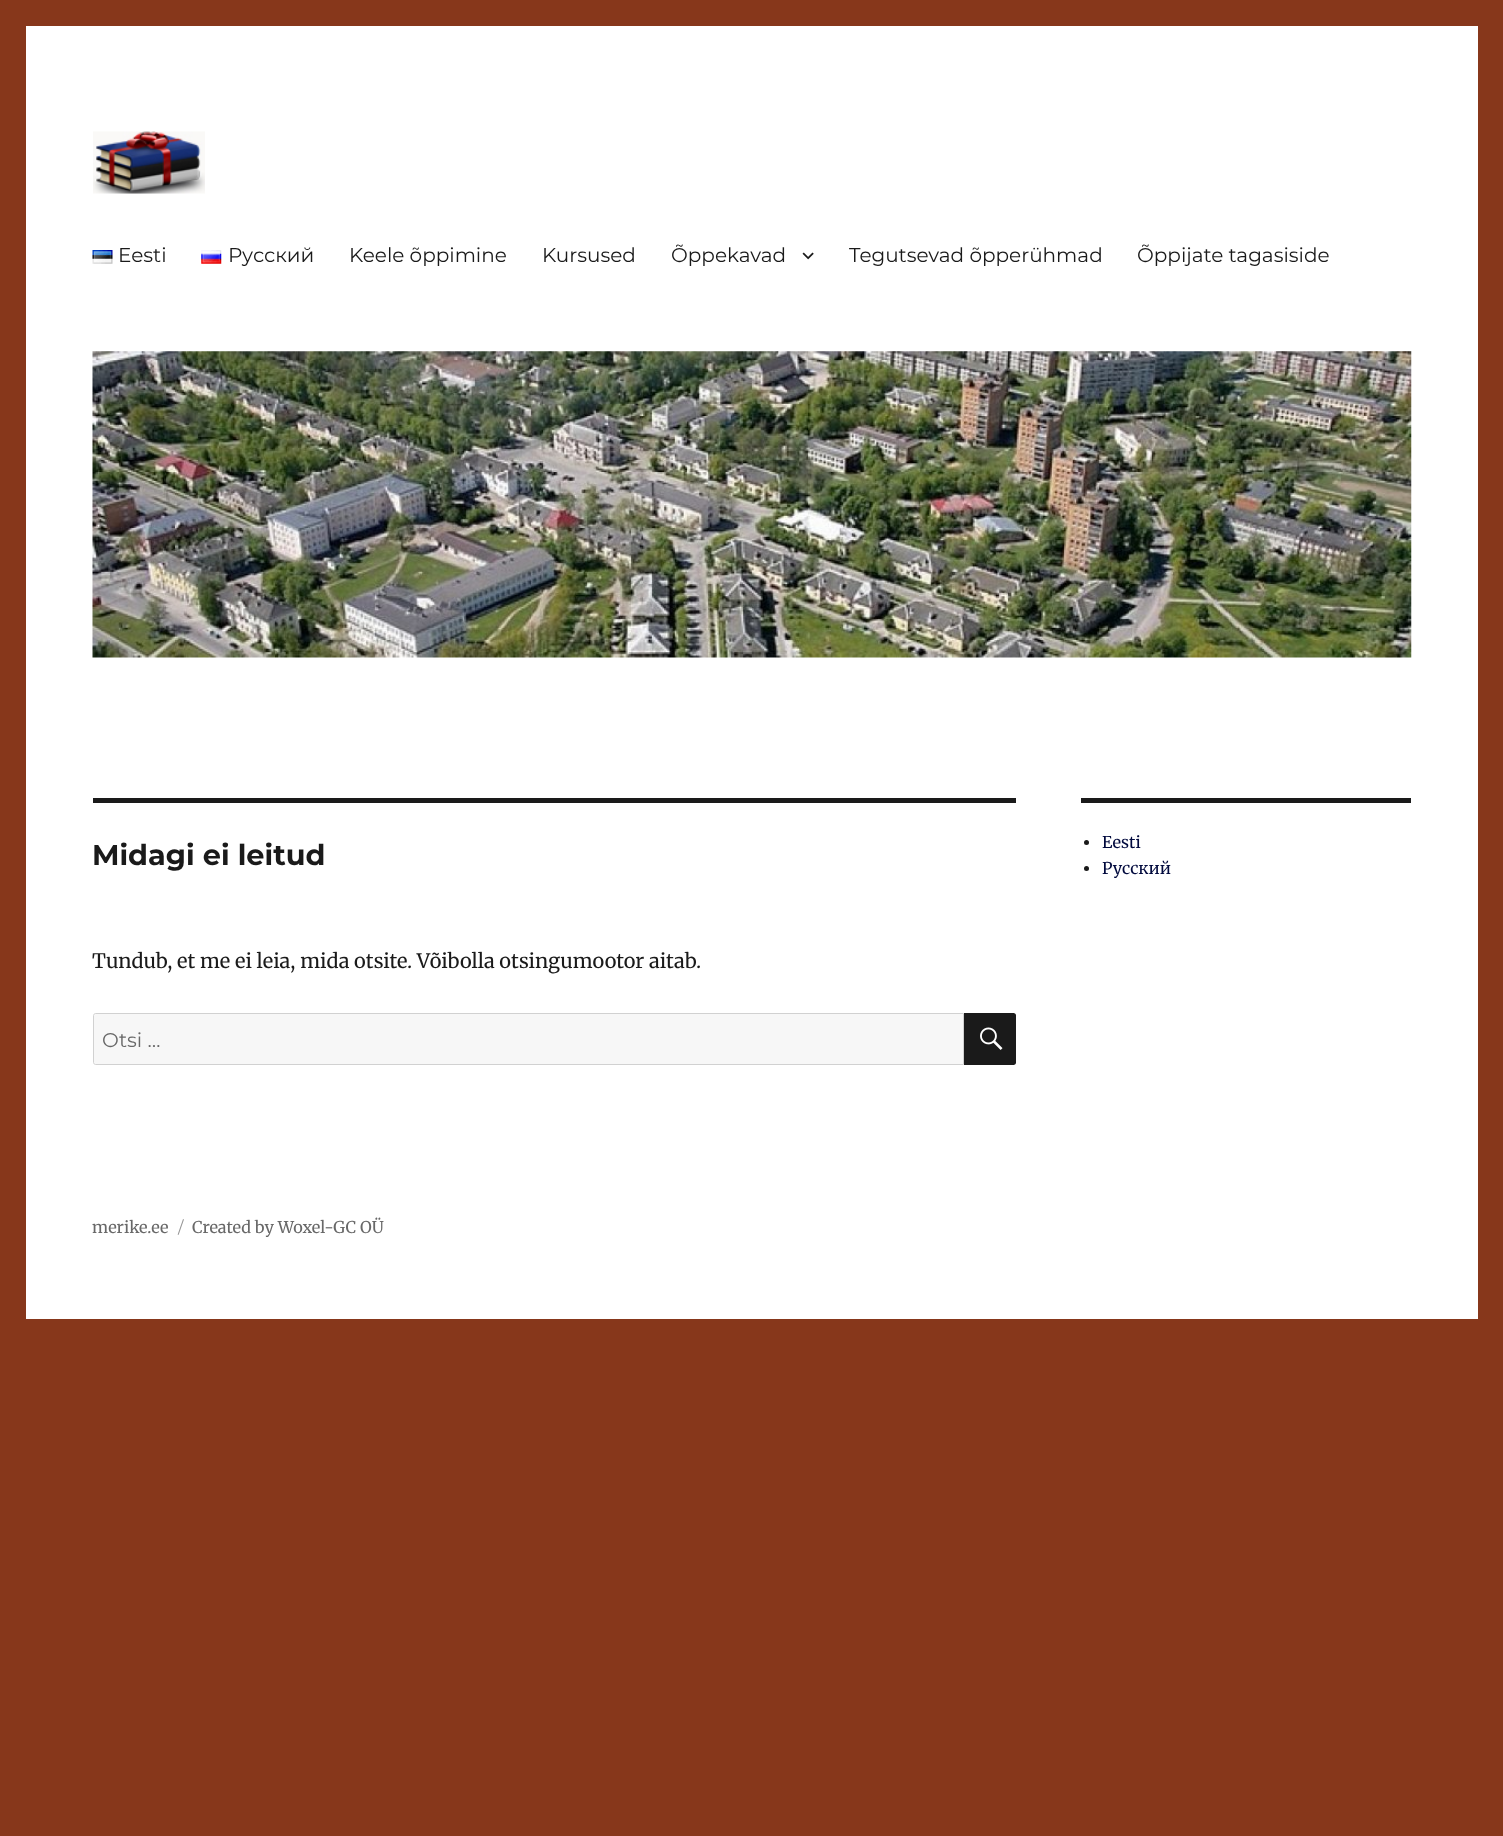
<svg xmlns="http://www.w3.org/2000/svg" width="1503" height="1836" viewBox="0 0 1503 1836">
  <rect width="100%" height="100%" fill="#87371b"/>
  <rect x="26" y="26" width="1452" height="1293" fill="#ffffff"/>
  <image x="93" y="131" width="112" height="63" href="img1.png"/>
  <image x="92" y="250" width="21" height="14" href="img2.png"/>
  <text x="118" y="262" font-family="Montserrat" font-size="20" fill="#1a1a1a">Eesti</text>
  <image x="201" y="250" width="21" height="14" href="img3.png"/>
  <text x="228" y="262" font-family="Montserrat" font-size="20" fill="#1a1a1a">Русский</text>
  <text x="349" y="262" font-family="Montserrat" font-size="20" fill="#1a1a1a">Keele õppimine</text>
  <text x="542" y="262" font-family="Montserrat" font-size="20" fill="#1a1a1a">Kursused</text>
  <text x="671" y="262" font-family="Montserrat" font-size="20" fill="#1a1a1a">Õppekavad</text>
  <image x="802" y="252" width="12" height="8" href="img4.png"/>
  <text x="849" y="262" font-family="Montserrat" font-size="20" fill="#1a1a1a">Tegutsevad õpperühmad</text>
  <text x="1137" y="262" font-family="Montserrat" font-size="20" fill="#1a1a1a">Õppijate tagasiside</text>
  <image x="92" y="351" width="1320" height="307" href="img5.png"/>
  <rect x="93" y="798" width="923" height="5" fill="#1a1a1a"/>
  <text x="92" y="865" font-family="Montserrat" font-size="28.75" font-weight="bold" fill="#1a1a1a">Midagi ei leitud</text>
  <text x="92" y="968" font-family="Merriweather" font-size="20" fill="#1a1a1a">Tundub, et me ei leia, mida otsite. Võibolla otsingumootor aitab.</text>
  <path d="M95.5 1013.5H963.5V1064.5H95.5C94.5 1064.5 93.5 1063.5 93.5 1062.5V1015.5C93.5 1014.5 94.5 1013.5 95.5 1013.5Z" fill="#f7f7f7" stroke="#d1d1d1"/>
  <text x="102" y="1047" font-family="Montserrat" font-size="20" fill="#686868">Otsi …</text>
  <path d="M964 1013H1013.5C1015 1013 1016 1014 1016 1015.5V1062.5C1016 1064 1015 1065 1013.5 1065H964Z" fill="#1a1a1a"/>
  <image x="980" y="1027" width="23" height="23" href="img6.png"/>
  <rect x="1081" y="798" width="330" height="5" fill="#1a1a1a"/>
  <circle cx="1086.5" cy="842.5" r="2.5" fill="#1a1a1a"/>
  <text x="1102" y="848" font-family="Merriweather" font-size="16.25" fill="#00093d">Eesti</text>
  <circle cx="1086.5" cy="868.5" r="2.5" fill="#1a1a1a"/>
  <text x="1102" y="874" font-family="Merriweather" font-size="16.25" fill="#00093d">Русский</text>
  <text x="92" y="1233" font-family="Merriweather" font-size="16.25" fill="#686868">merike.ee</text>
  <text x="178" y="1233" font-family="Montserrat" font-size="16.25" fill="#959595">/</text>
  <text x="192" y="1233" font-family="Merriweather" font-size="16.25" fill="#686868">Created by Woxel-GC OÜ</text>
</svg>
